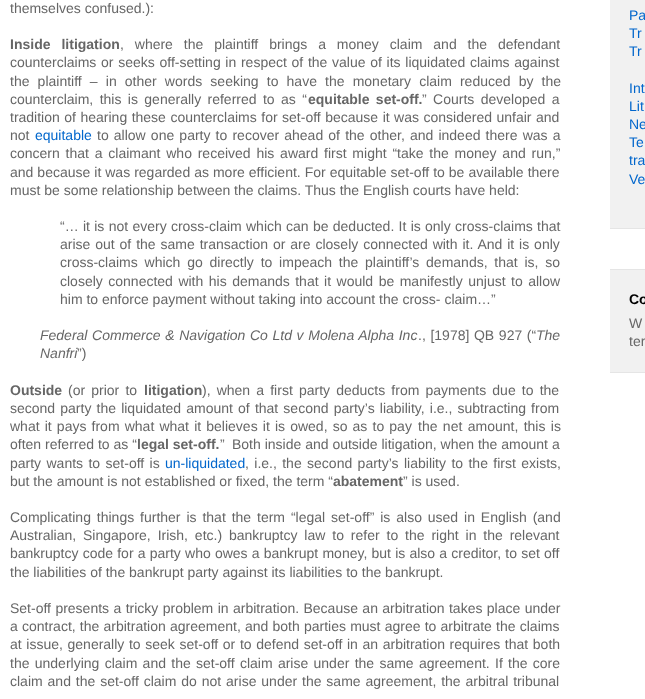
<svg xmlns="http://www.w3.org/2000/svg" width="645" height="699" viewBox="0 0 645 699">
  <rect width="100%" height="100%" fill="#ffffff"/>
  <text x="10" y="13" font-family="Liberation Sans" font-size="14" fill="#666666">themselves confused.):</text>
  <text x="10" y="49" font-family="Liberation Sans" font-size="14" font-weight="bold" fill="#666666">I</text>
  <text x="14" y="49" word-spacing="7" font-family="Liberation Sans" font-size="14" font-weight="bold" fill="#666666">nside litigation</text>
  <text x="120" y="49" word-spacing="7" font-family="Liberation Sans" font-size="14" fill="#666666">, where the plaintiff brings a money claim and the defendant</text>
  <text x="10" y="67" word-spacing="0.8" font-family="Liberation Sans" font-size="14" fill="#666666">counterclaims or seeks off-setting in respect of the value of its liquidated claims against</text>
  <text x="10" y="86" word-spacing="4.25" font-family="Liberation Sans" font-size="14" fill="#666666">the plaintiff – in other words seeking to have the monetary claim reduced by the</text>
  <text x="10" y="104" word-spacing="2.5" font-family="Liberation Sans" font-size="14" fill="#666666">counterclaim, this is generally referred to as “</text>
  <text x="308" y="104" word-spacing="2.5" font-family="Liberation Sans" font-size="14" font-weight="bold" fill="#666666">equitable set-off.</text>
  <text x="422" y="104" word-spacing="2.5" font-family="Liberation Sans" font-size="14" fill="#666666">” Courts developed a</text>
  <text x="10" y="122" word-spacing="0.6" font-family="Liberation Sans" font-size="14" fill="#666666">tradition of hearing these counterclaims for set-off because it was considered unfair and</text>
  <text x="10" y="140" font-family="Liberation Sans" font-size="14" fill="#666666">not</text>
  <text x="35" y="140" font-family="Liberation Sans" font-size="14" fill="#0066cc">equitable</text>
  <text x="97" y="140" word-spacing="1.25" font-family="Liberation Sans" font-size="14" fill="#666666">to allow one party to recover ahead of the other, and indeed there was a</text>
  <text x="10" y="158" word-spacing="1.9" font-family="Liberation Sans" font-size="14" fill="#666666">concern that a claimant who received his award first might “take the money and run,”</text>
  <text x="10" y="177" word-spacing="0.1" font-family="Liberation Sans" font-size="14" fill="#666666">and because it was regarded as more efficient. For equitable set-off to be available there</text>
  <text x="10" y="195" font-family="Liberation Sans" font-size="14" fill="#666666">must be some relationship between the claims. Thus the English courts have held:</text>
  <text x="60" y="231" word-spacing="0.4" font-family="Liberation Sans" font-size="14" fill="#666666">“… it is not every cross-claim which can be deducted. It is only cross-claims that</text>
  <text x="60" y="249" word-spacing="1" font-family="Liberation Sans" font-size="14" fill="#666666">arise out of the same transaction or are closely connected with it. And it is only</text>
  <text x="60" y="267" word-spacing="2.9" font-family="Liberation Sans" font-size="14" fill="#666666">cross-claims which go directly to impeach the plaintiff’s demands, that is, so</text>
  <text x="60" y="286" word-spacing="1.6" font-family="Liberation Sans" font-size="14" fill="#666666">closely connected with his demands that it would be manifestly unjust to allow</text>
  <text x="60" y="304" font-family="Liberation Sans" font-size="14" fill="#666666">him to enforce payment without taking into account the cross- claim…”</text>
  <text x="40" y="340" word-spacing="0.75" font-family="Liberation Sans" font-size="14" font-style="italic" fill="#666666">Federal Commerce &amp; Navigation Co Ltd v Molena Alpha Inc</text>
  <text x="418" y="340" word-spacing="0.75" font-family="Liberation Sans" font-size="14" fill="#666666">., [1978] QB 927 (“</text>
  <text x="536" y="340" font-family="Liberation Sans" font-size="14" font-style="italic" fill="#666666">The</text>
  <text x="40" y="358" font-family="Liberation Sans" font-size="14" font-style="italic" fill="#666666">Nanfri</text>
  <text x="77" y="358" font-family="Liberation Sans" font-size="14" fill="#666666">”)</text>
  <text x="10" y="395" font-family="Liberation Sans" font-size="14" font-weight="bold" fill="#666666">Outside</text>
  <text x="68" y="395" word-spacing="2.25" font-family="Liberation Sans" font-size="14" fill="#666666">(or prior to</text>
  <text x="144" y="395" font-family="Liberation Sans" font-size="14" font-weight="bold" fill="#666666">litigation</text>
  <text x="202" y="395" word-spacing="2.25" font-family="Liberation Sans" font-size="14" fill="#666666">), when a first party deducts from payments due to the</text>
  <text x="10" y="413" word-spacing="1.25" font-family="Liberation Sans" font-size="14" fill="#666666">second party the liquidated amount of that second party’s liability, i.e., subtracting from</text>
  <text x="10" y="431" word-spacing="1.25" font-family="Liberation Sans" font-size="14" fill="#666666">what it pays from what what it believes it is owed, so as to pay</text>
  <text x="418" y="431" word-spacing="1.5" font-family="Liberation Sans" font-size="14" fill="#666666">the net amount, this is</text>
  <text x="10" y="449" font-family="Liberation Sans" font-size="14" fill="#666666">often referred to as “</text>
  <text x="137" y="449" font-family="Liberation Sans" font-size="14" font-weight="bold" fill="#666666">legal set-off.</text>
  <text x="220" y="449" font-family="Liberation Sans" font-size="14" fill="#666666">”</text>
  <text x="232" y="449" font-family="Liberation Sans" font-size="14" fill="#666666">Both inside and outside litigation, when the amount a</text>
  <text x="10" y="468" word-spacing="1.5" font-family="Liberation Sans" font-size="14" fill="#666666">party wants to set-off is</text>
  <text x="165" y="468" font-family="Liberation Sans" font-size="14" fill="#0066cc">un-liquidated</text>
  <text x="245" y="468" word-spacing="1.5" font-family="Liberation Sans" font-size="14" fill="#666666">, i.e., the second party’s liability to the first exists,</text>
  <text x="10" y="486" font-family="Liberation Sans" font-size="14" fill="#666666">but the amount is not established or fixed, the term “</text>
  <text x="333" y="486" font-family="Liberation Sans" font-size="14" font-weight="bold" fill="#666666">abatement</text>
  <text x="403" y="486" font-family="Liberation Sans" font-size="14" fill="#666666">” is used.</text>
  <text x="10" y="522" word-spacing="2" font-family="Liberation Sans" font-size="14" fill="#666666">Complicating things further is that the term “legal set-off” is also used in English (and</text>
  <text x="10" y="540" word-spacing="3" font-family="Liberation Sans" font-size="14" fill="#666666">Australian, Singapore, Irish, etc.) bankruptcy law to refer to the right in the relevant</text>
  <text x="10" y="558" word-spacing="0.3" font-family="Liberation Sans" font-size="14" fill="#666666">bankruptcy code for a party who owes a bankrupt money, but is also a creditor, to set off</text>
  <text x="10" y="577" font-family="Liberation Sans" font-size="14" fill="#666666">the liabilities of the bankrupt party against its liabilities to the bankrupt.</text>
  <text x="10" y="613" word-spacing="0.5" font-family="Liberation Sans" font-size="14" fill="#666666">Set-off presents a tricky problem in arbitration. Because an arbitration takes place under</text>
  <text x="10" y="631" word-spacing="0.3" font-family="Liberation Sans" font-size="14" fill="#666666">a contract, the arbitration agreement, and both parties must agree to arbitrate the claims</text>
  <text x="10" y="649" word-spacing="0.75" font-family="Liberation Sans" font-size="14" fill="#666666">at issue, generally to seek set-off or to defend set-off in an arbitration requires that both</text>
  <text x="10" y="668" word-spacing="1.4" font-family="Liberation Sans" font-size="14" fill="#666666">the underlying claim and the set-off claim arise under the same agreement. If the core</text>
  <text x="10" y="686" word-spacing="1" font-family="Liberation Sans" font-size="14" fill="#666666">claim and the set-off claim do not arise under the same agreement, the arbitral tribunal</text>
  <rect x="610" y="0" width="35" height="228" fill="#f1f1f1"/>
  <rect x="610" y="228" width="35" height="1" fill="#e5e5e5"/>
  <text x="629" y="20" font-family="Liberation Sans" font-size="14" fill="#0066cc">Pa</text>
  <text x="629" y="38" font-family="Liberation Sans" font-size="14" fill="#0066cc">Tr</text>
  <text x="629" y="56" font-family="Liberation Sans" font-size="14" fill="#0066cc">Tr</text>
  <text x="629" y="93" font-family="Liberation Sans" font-size="14" fill="#0066cc">Int</text>
  <text x="629" y="111" font-family="Liberation Sans" font-size="14" fill="#0066cc">Lit</text>
  <text x="629" y="129" font-family="Liberation Sans" font-size="14" fill="#0066cc">Ne</text>
  <text x="629" y="147" font-family="Liberation Sans" font-size="14" fill="#0066cc">Te</text>
  <text x="629" y="165" font-family="Liberation Sans" font-size="14" fill="#0066cc">tra</text>
  <text x="629" y="184" font-family="Liberation Sans" font-size="14" fill="#0066cc">Ve</text>
  <rect x="610" y="270" width="35" height="102" fill="#f1f1f1"/>
  <rect x="610" y="269" width="35" height="1" fill="#e5e5e5"/>
  <rect x="610" y="372" width="35" height="1" fill="#e5e5e5"/>
  <text x="629" y="304" font-family="Liberation Sans" font-size="14" font-weight="bold" fill="#000000">Co</text>
  <text x="629" y="328" font-family="Liberation Sans" font-size="14" fill="#666666">W</text>
  <text x="629" y="346" font-family="Liberation Sans" font-size="14" fill="#666666">ter</text>
</svg>
